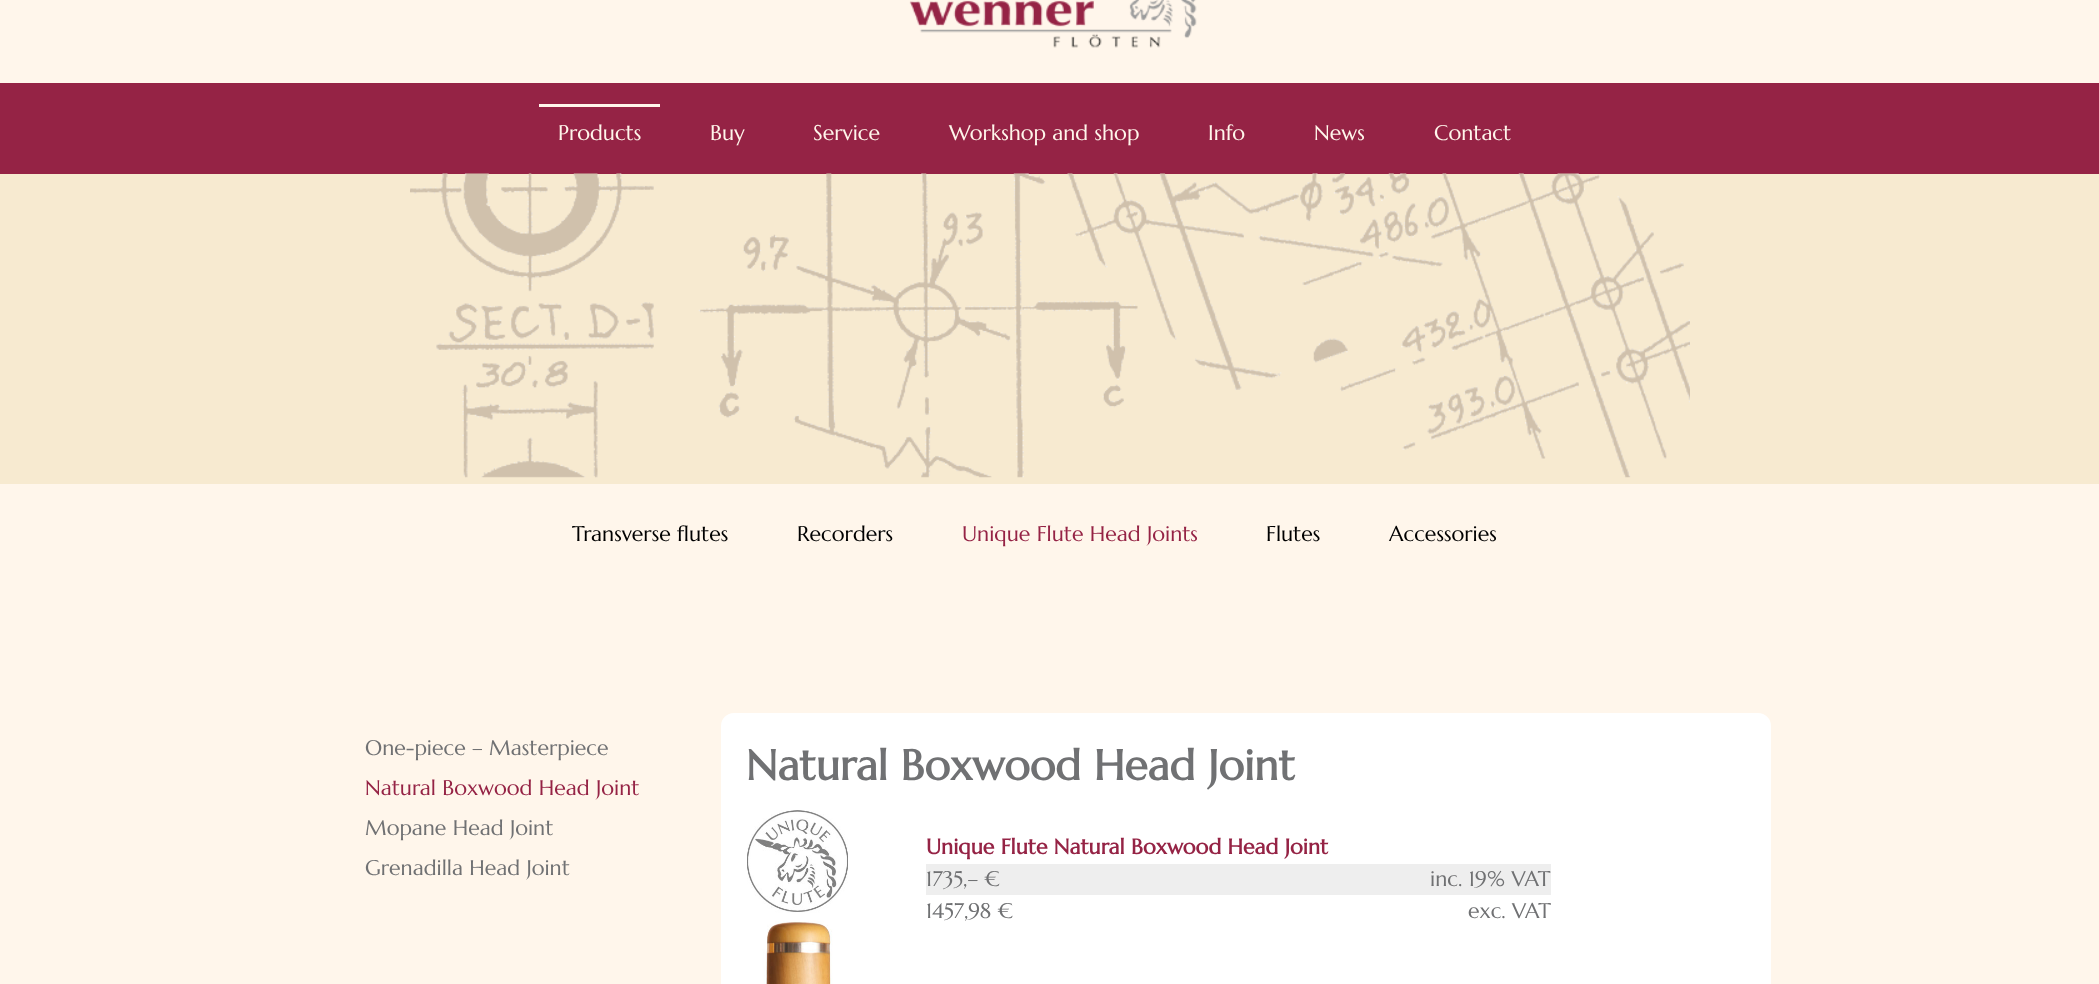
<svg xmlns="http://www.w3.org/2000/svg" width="2099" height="984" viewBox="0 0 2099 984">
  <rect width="100%" height="100%" fill="#fff6eb"/>
  <image x="909" y="0" width="288" height="48" href="img1.png"/>
  <rect x="0" y="83" width="2099" height="91" fill="#952345"/>
  <rect x="539" y="104" width="121" height="3" fill="#fff6eb"/>
  <text x="558" y="140" font-family="Marcellus" font-size="21.25" fill="#fff6eb">Products</text>
  <text x="710" y="140" font-family="Marcellus" font-size="21.25" fill="#fff6eb">Buy</text>
  <text x="813" y="140" font-family="Marcellus" font-size="21.25" fill="#fff6eb">Service</text>
  <text x="949" y="140" font-family="Marcellus" font-size="21.25" fill="#fff6eb">Workshop and shop</text>
  <text x="1208" y="140" font-family="Marcellus" font-size="21.25" fill="#fff6eb">Info</text>
  <text x="1314" y="140" font-family="Marcellus" font-size="21.25" fill="#fff6eb">News</text>
  <text x="1434" y="140" font-family="Marcellus" font-size="21.25" fill="#fff6eb">Contact</text>
  <rect x="0" y="174" width="2099" height="310" fill="#f7ead0"/>
  <image x="410" y="173" width="1280" height="305" href="img2.png"/>
  <text x="572" y="541" font-family="Marcellus" font-size="21.25" fill="#000000">Transverse flutes</text>
  <text x="797" y="541" font-family="Marcellus" font-size="21.25" fill="#000000">Recorders</text>
  <text x="962" y="541" font-family="Marcellus" font-size="21.25" fill="#952345">Unique Flute Head Joints</text>
  <text x="1266" y="541" font-family="Marcellus" font-size="21.25" fill="#000000">Flutes</text>
  <text x="1389" y="541" font-family="Marcellus" font-size="21.25" fill="#000000">Accessories</text>
  <text x="365" y="755" font-family="Marcellus" font-size="21.25" fill="#707173">One-piece – Masterpiece</text>
  <text x="365" y="795" font-family="Marcellus" font-size="21.25" fill="#952345">Natural Boxwood Head Joint</text>
  <text x="365" y="835" font-family="Marcellus" font-size="21.25" fill="#707173">Mopane Head Joint</text>
  <text x="365" y="875" font-family="Marcellus" font-size="21.25" fill="#707173">Grenadilla Head Joint</text>
  <rect x="721" y="713" width="1050" height="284" rx="13" fill="#ffffff"/>
  <text x="746" y="780" font-family="Marcellus" font-size="42.5" font-weight="bold" fill="#707173">Natural Boxwood Head Joint</text>
  <image x="747" y="810" width="101" height="174" href="img3.png"/>
  <text x="926" y="854" font-family="Marcellus" font-size="21.25" font-weight="bold" fill="#952345">Unique Flute Natural Boxwood Head Joint</text>
  <rect x="926" y="864" width="625" height="31" fill="#eeeeee"/>
  <text x="926" y="886" font-family="Marcellus" font-size="21.25" fill="#707173">1735,– €</text>
  <text x="1430" y="886" font-family="Marcellus" font-size="21.25" fill="#707173">inc. 19% VAT</text>
  <text x="926" y="918" font-family="Marcellus" font-size="21.25" fill="#707173">1457,98 €</text>
  <text x="1468" y="918" font-family="Marcellus" font-size="21.25" fill="#707173">exc. VAT</text>
</svg>
